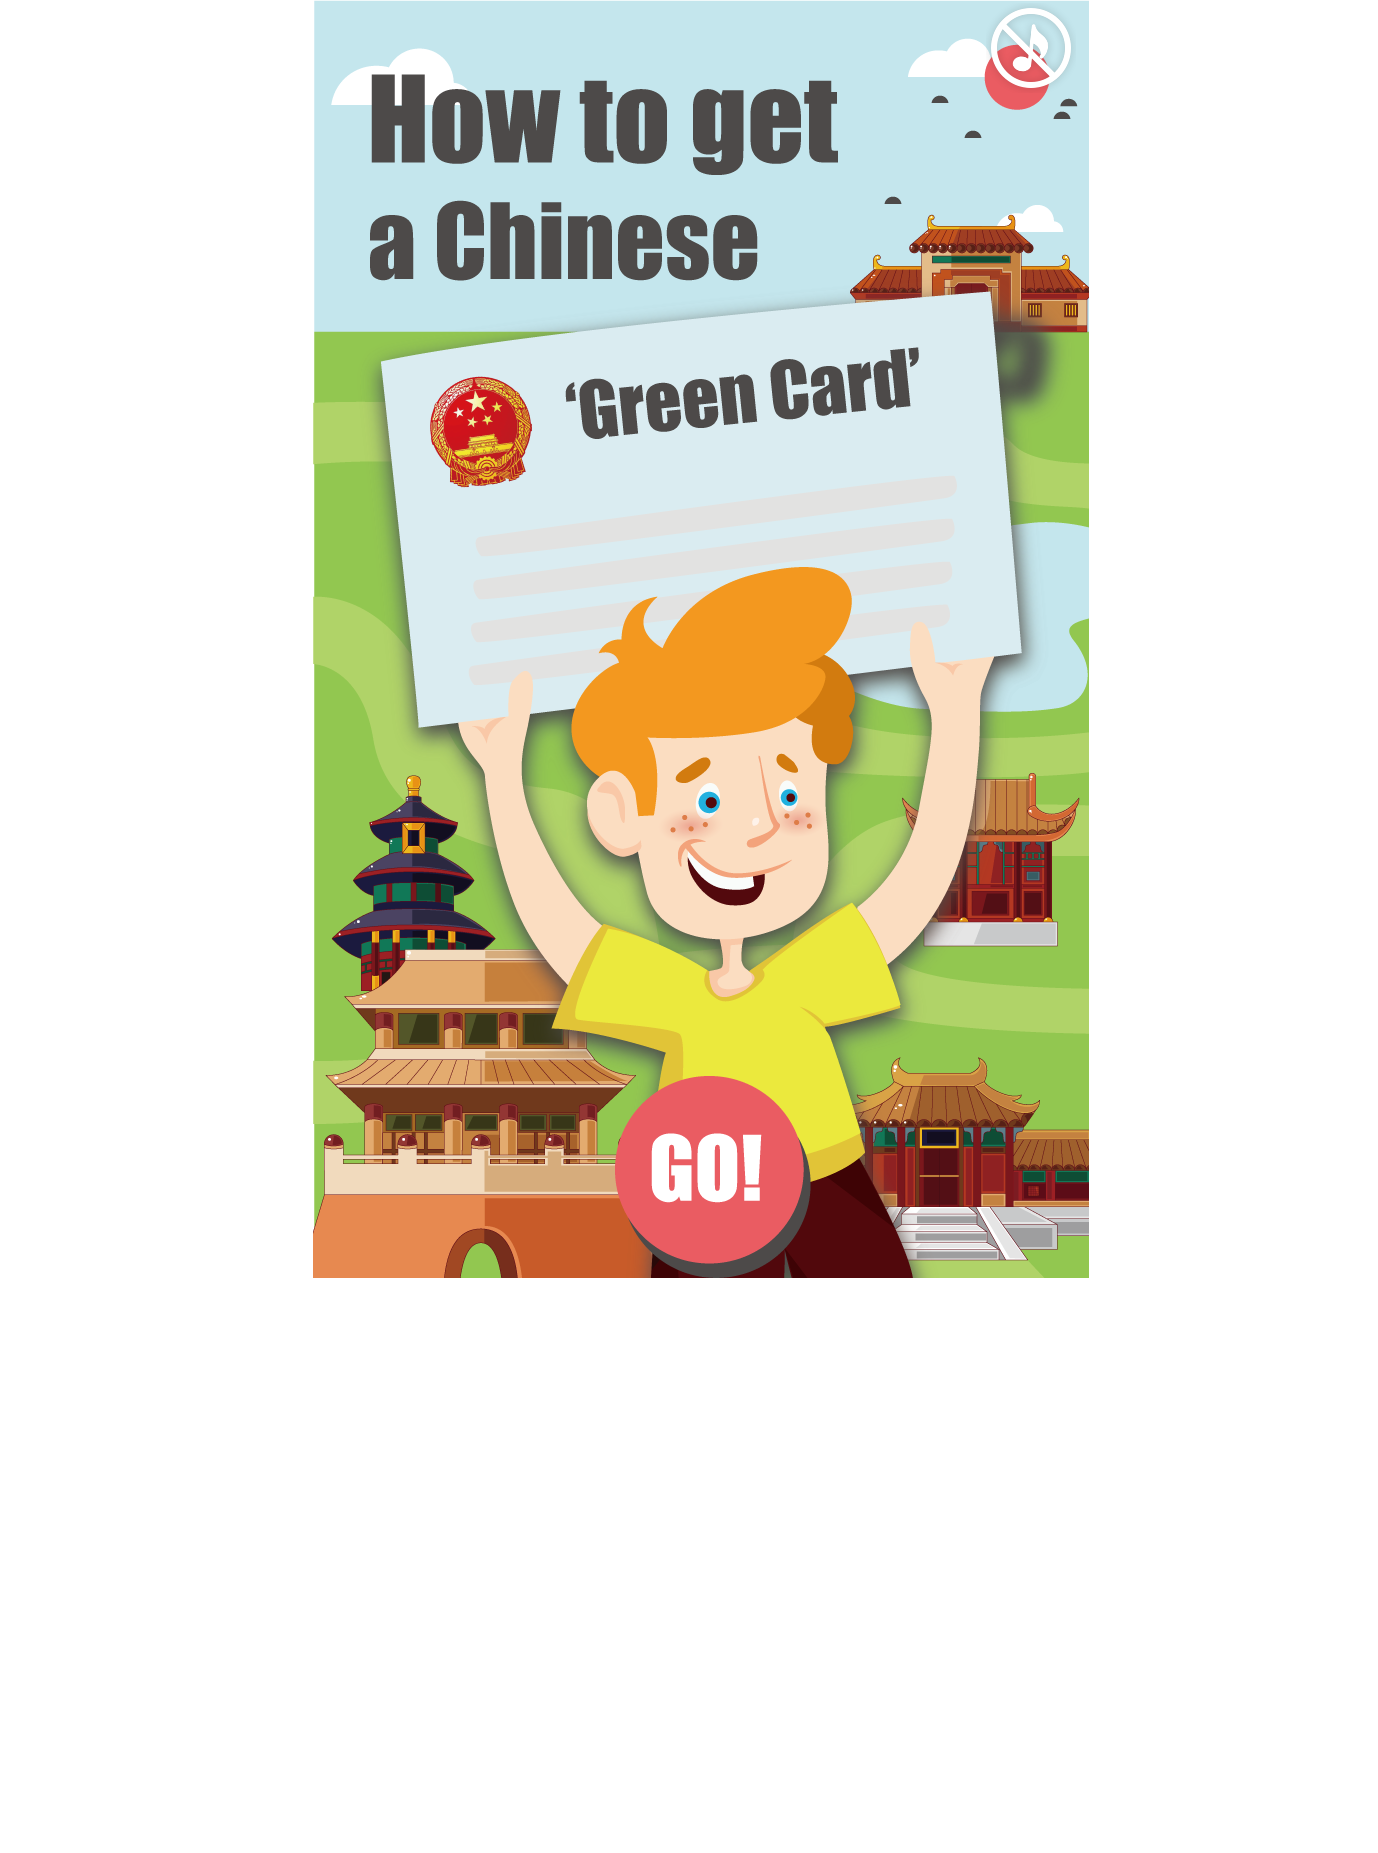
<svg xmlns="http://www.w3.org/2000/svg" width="1378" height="1853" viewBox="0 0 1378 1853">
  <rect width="100%" height="100%" fill="#ffffff"/>
  <image x="313" y="0" width="776" height="1278" href="img1.png"/>
  <image x="986" y="3" width="90" height="90" href="img2.png"/>
</svg>
